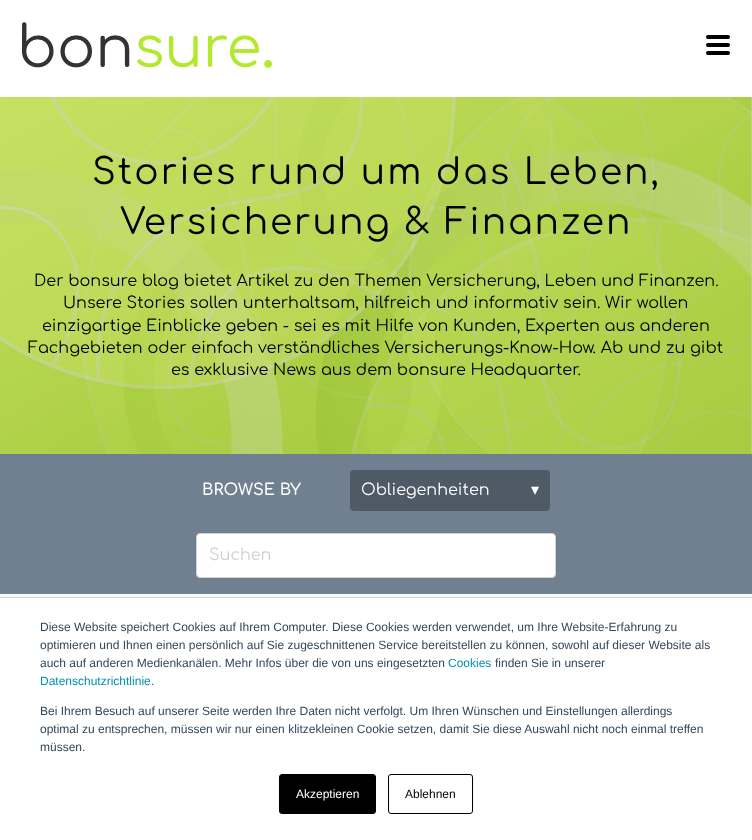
<svg xmlns="http://www.w3.org/2000/svg" width="752" height="840" viewBox="0 0 752 840">
  <defs>
    <filter id="blur1" x="-50%" y="-200%" width="200%" height="500%"><feGaussianBlur stdDeviation="1.5"/></filter>
  </defs>
  <rect width="100%" height="100%" fill="#ffffff"/>
  <image x="22" y="22" width="250" height="46" href="img1.png"/>
  <rect x="706" y="43" width="24" height="4" rx="2" fill="#000000"/>
  <rect x="706" y="35" width="24" height="4" rx="2" fill="#000000"/>
  <rect x="706" y="51" width="24" height="4" rx="2" fill="#000000"/>
  <rect x="751" y="97" width="1" height="357" fill="#d0d0d0"/>
  <image x="0" y="97" width="752" height="357" href="img2.png"/>
  <text x="92" y="184" font-family="Comfortaa" font-size="36" letter-spacing="2" fill="#000000">Stories rund um das Leben,</text>
  <text x="120" y="234" font-family="Comfortaa" font-size="36" letter-spacing="2" fill="#000000">Versicherung &amp; Finanzen</text>
  <text x="34" y="286" font-family="Comfortaa" font-size="16" fill="#000000">Der bonsure blog bietet Artikel zu den Themen Versicherung, Leben und Finanzen.</text>
  <text x="63" y="308" font-family="Comfortaa" font-size="16" fill="#000000">Unsere Stories sollen unterhaltsam, hilfreich und informativ sein. Wir wollen</text>
  <text x="42" y="331" font-family="Comfortaa" font-size="16" fill="#000000">einzigartige Einblicke geben - sei es mit Hilfe von Kunden, Experten aus anderen</text>
  <text x="28" y="353" font-family="Comfortaa" font-size="16" fill="#000000">Fachgebieten oder einfach verständliches Versicherungs-Know-How. Ab und zu gibt</text>
  <text x="171" y="375" font-family="Comfortaa" font-size="16" fill="#000000">es exklusive News aus dem bonsure Headquarter.</text>
  <rect x="0" y="454" width="752" height="140" fill="#708090"/>
  <text x="202" y="495" font-family="Comfortaa" font-size="16" font-weight="600" fill="#ffffff">BROWSE BY</text>
  <rect x="350" y="470" width="200" height="41" rx="4" fill="#4e5a65"/>
  <text x="361" y="495" font-family="Comfortaa" font-size="16" fill="#ffffff">Obliegenheiten</text>
  <text x="531" y="495" font-family="DejaVu Sans" font-size="16" fill="#ffffff">▾</text>
  <rect x="196.5" y="533.5" width="359" height="44" rx="3.5" fill="#ffffff" stroke="#d0d0d0"/>
  <text x="209" y="560" font-family="Comfortaa" font-size="16" fill="#d0d0d0">Suchen</text>
  <rect x="0" y="596" width="752" height="243" fill="#eaf0f6" filter="url(#blur1)"/>
  <rect x="0" y="598" width="752" height="242" fill="#ffffff"/>
  <rect x="0" y="597" width="752" height="1" fill="#cbd6e2"/>
  <text x="40" y="631" font-family="Liberation Sans" font-size="12" fill="#33475b">Diese Website speichert Cookies auf Ihrem Computer. Diese Cookies werden verwendet, um Ihre Website-Erfahrung zu</text>
  <text x="40" y="649" font-family="Liberation Sans" font-size="12" fill="#33475b">optimieren und Ihnen einen persönlich auf Sie zugeschnittenen Service bereitstellen zu können, sowohl auf dieser Website als</text>
  <text x="40" y="667" font-family="Liberation Sans" font-size="12" fill="#33475b">auch auf anderen Medienkanälen. Mehr Infos über die von uns eingesetzten</text>
  <text x="448" y="667" font-family="Liberation Sans" font-size="12" fill="#0091ae">Cookies</text>
  <text x="495" y="667" font-family="Liberation Sans" font-size="12" fill="#33475b">finden Sie in unserer</text>
  <text x="40" y="685" font-family="Liberation Sans" font-size="12" fill="#0091ae">Datenschutzrichtlinie</text>
  <text x="151" y="685" font-family="Liberation Sans" font-size="12" fill="#33475b">.</text>
  <text x="40" y="715" font-family="Liberation Sans" font-size="12" fill="#33475b">Bei Ihrem Besuch auf unserer Seite werden Ihre Daten nicht verfolgt. Um Ihren Wünschen und Einstellungen allerdings</text>
  <text x="40" y="733" font-family="Liberation Sans" font-size="12" fill="#33475b">optimal zu entsprechen, müssen wir nur einen klitzekleinen Cookie setzen, damit Sie diese Auswahl nicht noch einmal treffen</text>
  <text x="40" y="751" font-family="Liberation Sans" font-size="12" fill="#33475b">müssen.</text>
  <rect x="279.5" y="774.5" width="96" height="39" rx="2.5" fill="#000000" stroke="#000000"/>
  <text x="296" y="798" font-family="Liberation Sans" font-size="12" fill="#ffffff">Akzeptieren</text>
  <rect x="388.5" y="774.5" width="84" height="39" rx="2.5" fill="none" stroke="#000000"/>
  <text x="405" y="798" font-family="Liberation Sans" font-size="12" fill="#000000">Ablehnen</text>
</svg>
